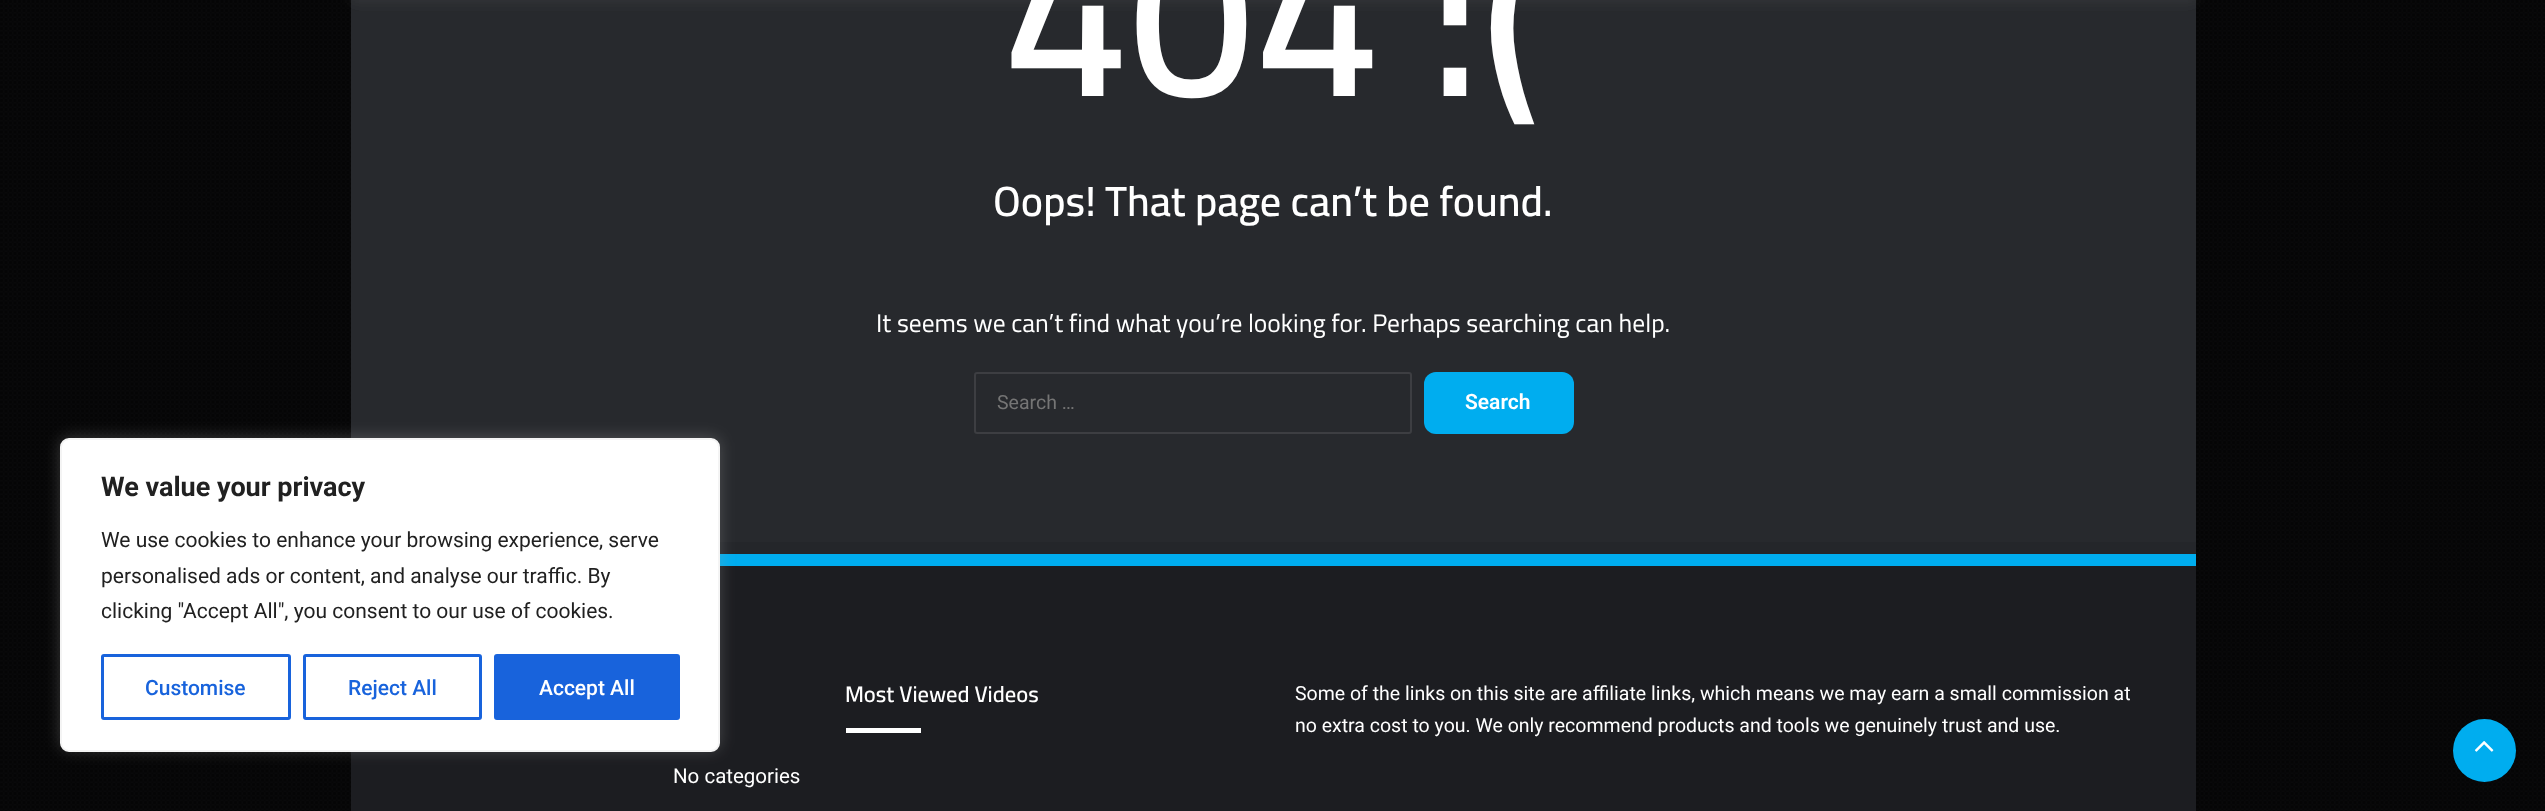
<svg xmlns="http://www.w3.org/2000/svg" width="2545" height="811" viewBox="0 0 2545 811">
  <defs>
    <filter id="blur1" x="-50%" y="-200%" width="200%" height="500%"><feGaussianBlur stdDeviation="7.5"/></filter>
    <filter id="blur2" x="-50%" y="-200%" width="200%" height="500%"><feGaussianBlur stdDeviation="6"/></filter>
  </defs>
  <rect width="100%" height="100%" fill="#0a0a0b"/>
  <image x="0" y="0" width="2545" height="811" href="img1.png"/>
  <rect x="351" y="0" width="1845" height="542" fill="#27292d"/>
  <rect x="351" y="566" width="1845" height="245" fill="#1c1d21"/>
  <rect x="720" y="542" width="1476" height="12" fill="#24262a"/>
  <rect x="720" y="554" width="1476" height="12" fill="#00adef"/>
  <rect x="60" y="437" width="660" height="313" rx="9" fill="#acabab" fill-opacity="0.3" filter="url(#blur1)"/>
  <rect x="61" y="439" width="658" height="312" rx="8" fill="#ffffff" stroke="#f4f4f4" stroke-width="2"/>
  <text x="101" y="496" font-family="Roboto" font-size="27" font-weight="bold" fill="#212121">We value your privacy</text>
  <text x="101" y="547" font-family="Roboto" font-size="21" fill="#212121">We use cookies to enhance your browsing experience, serve</text>
  <text x="101" y="583" font-family="Roboto" font-size="21" fill="#212121">personalised ads or content, and analyse our traffic. By</text>
  <text x="101" y="618" font-family="Roboto" font-size="21" fill="#212121">clicking "Accept All", you consent to our use of cookies.</text>
  <rect x="102.5" y="655.5" width="187" height="63" rx="1.5" fill="none" stroke="#1863dc" stroke-width="3"/>
  <text x="145" y="695" font-family="Roboto" font-size="21" font-weight="500" fill="#1863dc">Customise</text>
  <rect x="304.5" y="655.5" width="176" height="63" rx="1.5" fill="none" stroke="#1863dc" stroke-width="3"/>
  <text x="348" y="695" font-family="Roboto" font-size="21" font-weight="500" fill="#1863dc">Reject All</text>
  <rect x="495.5" y="655.5" width="183" height="63" rx="1.5" fill="#1863dc" stroke="#1863dc" stroke-width="3"/>
  <text x="539" y="695" font-family="Roboto" font-size="21" font-weight="500" fill="#ffffff">Accept All</text>
  <rect x="351" y="-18" width="1845" height="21" fill="#636363" fill-opacity="0.2" filter="url(#blur2)"/>
  <text x="1003" y="96" font-family="Cairo" font-size="225" font-weight="600" fill="#ffffff">404 :(</text>
  <text x="993" y="216" font-family="Cairo" font-size="42" font-weight="600" fill="#ffffff">Oops! That page can’t be found.</text>
  <text x="876" y="332" font-family="Cairo" font-size="25.5" fill="#ffffff">It seems we can’t find what you’re looking for. Perhaps searching can help.</text>
  <rect x="975" y="373" width="436" height="60" rx="2" fill="none" stroke="#3d3e42" stroke-width="2"/>
  <text x="997" y="409" font-family="Roboto" font-size="19.5" fill="#757575">Search …</text>
  <rect x="1424" y="372" width="150" height="62" rx="12" fill="#00adef"/>
  <text x="1465" y="409" font-family="Roboto" font-size="21" font-weight="600" fill="#ffffff">Search</text>
  <text x="845" y="702" font-family="Cairo" font-size="22.5" font-weight="600" fill="#ffffff">Most Viewed Videos</text>
  <rect x="846" y="728" width="75" height="5" fill="#ffffff"/>
  <text x="1295" y="700" font-family="Roboto" font-size="19.5" fill="#ffffff">Some of the links on this site are affiliate links, which means we may earn a small commission at</text>
  <text x="1295" y="732" font-family="Roboto" font-size="19.5" fill="#ffffff">no extra cost to you. We only recommend products and tools we genuinely trust and use.</text>
  <text x="673" y="783" font-family="Roboto" font-size="20.5" fill="#ffffff">No categories</text>
  <circle cx="2484.5" cy="750.5" r="31.5" fill="#00adef"/>
  <image x="2474" y="741" width="20" height="11" href="img2.png"/>
</svg>
